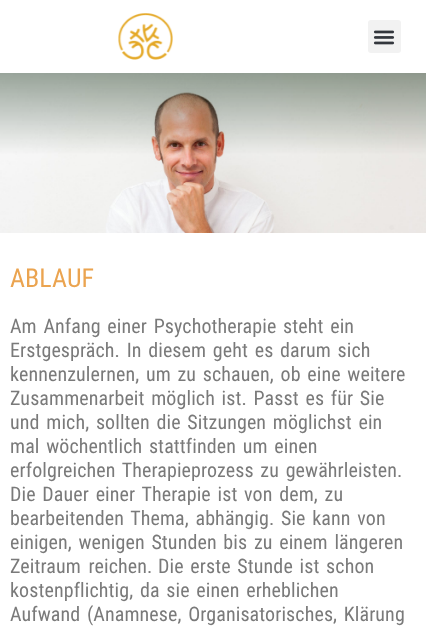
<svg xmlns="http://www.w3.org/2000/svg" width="426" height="637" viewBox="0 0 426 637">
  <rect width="100%" height="100%" fill="#ffffff"/>
  <image x="118" y="13" width="55" height="47" href="img1.png"/>
  <rect x="368" y="20" width="33" height="33" rx="3" fill="#f2f2f2"/>
  <image x="373" y="30" width="22" height="15" href="img2.png"/>
  <image x="0" y="73" width="426" height="160" href="img3.png"/>
  <text x="10" y="287" font-family="Roboto Condensed" font-size="26" letter-spacing="0.1" fill="#eba450">ABLAUF</text>
  <text x="10" y="333" word-spacing="2" font-family="Roboto Condensed" font-size="20" letter-spacing="0.1" fill="#7a7a7a">Am Anfang einer Psychotherapie steht ein</text>
  <text x="10" y="357" word-spacing="2" font-family="Roboto Condensed" font-size="20" letter-spacing="0.1" fill="#7a7a7a">Erstgespräch. In diesem geht es darum sich</text>
  <text x="10" y="381" word-spacing="2" font-family="Roboto Condensed" font-size="20" letter-spacing="0.1" fill="#7a7a7a">kennenzulernen, um zu schauen, ob eine weitere</text>
  <text x="10" y="405" word-spacing="2" font-family="Roboto Condensed" font-size="20" letter-spacing="0.1" fill="#7a7a7a">Zusammenarbeit möglich ist. Passt es für Sie</text>
  <text x="10" y="429" word-spacing="2" font-family="Roboto Condensed" font-size="20" letter-spacing="0.1" fill="#7a7a7a">und mich, sollten die Sitzungen möglichst ein</text>
  <text x="10" y="453" word-spacing="2" font-family="Roboto Condensed" font-size="20" letter-spacing="0.1" fill="#7a7a7a">mal wöchentlich stattfinden um einen</text>
  <text x="10" y="477" word-spacing="2" font-family="Roboto Condensed" font-size="20" letter-spacing="0.1" fill="#7a7a7a">erfolgreichen Therapieprozess zu gewährleisten.</text>
  <text x="10" y="501" word-spacing="2" font-family="Roboto Condensed" font-size="20" letter-spacing="0.1" fill="#7a7a7a">Die Dauer einer Therapie ist von dem, zu</text>
  <text x="10" y="525" word-spacing="2" font-family="Roboto Condensed" font-size="20" letter-spacing="0.1" fill="#7a7a7a">bearbeitenden Thema, abhängig. Sie kann von</text>
  <text x="10" y="549" word-spacing="2" font-family="Roboto Condensed" font-size="20" letter-spacing="0.1" fill="#7a7a7a">einigen, wenigen Stunden bis zu einem längeren</text>
  <text x="10" y="573" word-spacing="3" font-family="Roboto Condensed" font-size="20" letter-spacing="0.1" fill="#7a7a7a">Zeitraum reichen.</text>
  <text x="158" y="573" word-spacing="2" font-family="Roboto Condensed" font-size="20" letter-spacing="0.1" fill="#7a7a7a">Die erste Stunde ist schon</text>
  <text x="10" y="597" word-spacing="2" font-family="Roboto Condensed" font-size="20" letter-spacing="0.1" fill="#7a7a7a">kostenpflichtig, da sie einen erheblichen</text>
  <text x="10" y="621" word-spacing="2" font-family="Roboto Condensed" font-size="20" letter-spacing="0.1" fill="#7a7a7a">Aufwand (Anamnese, Organisatorisches, Klärung</text>
</svg>
